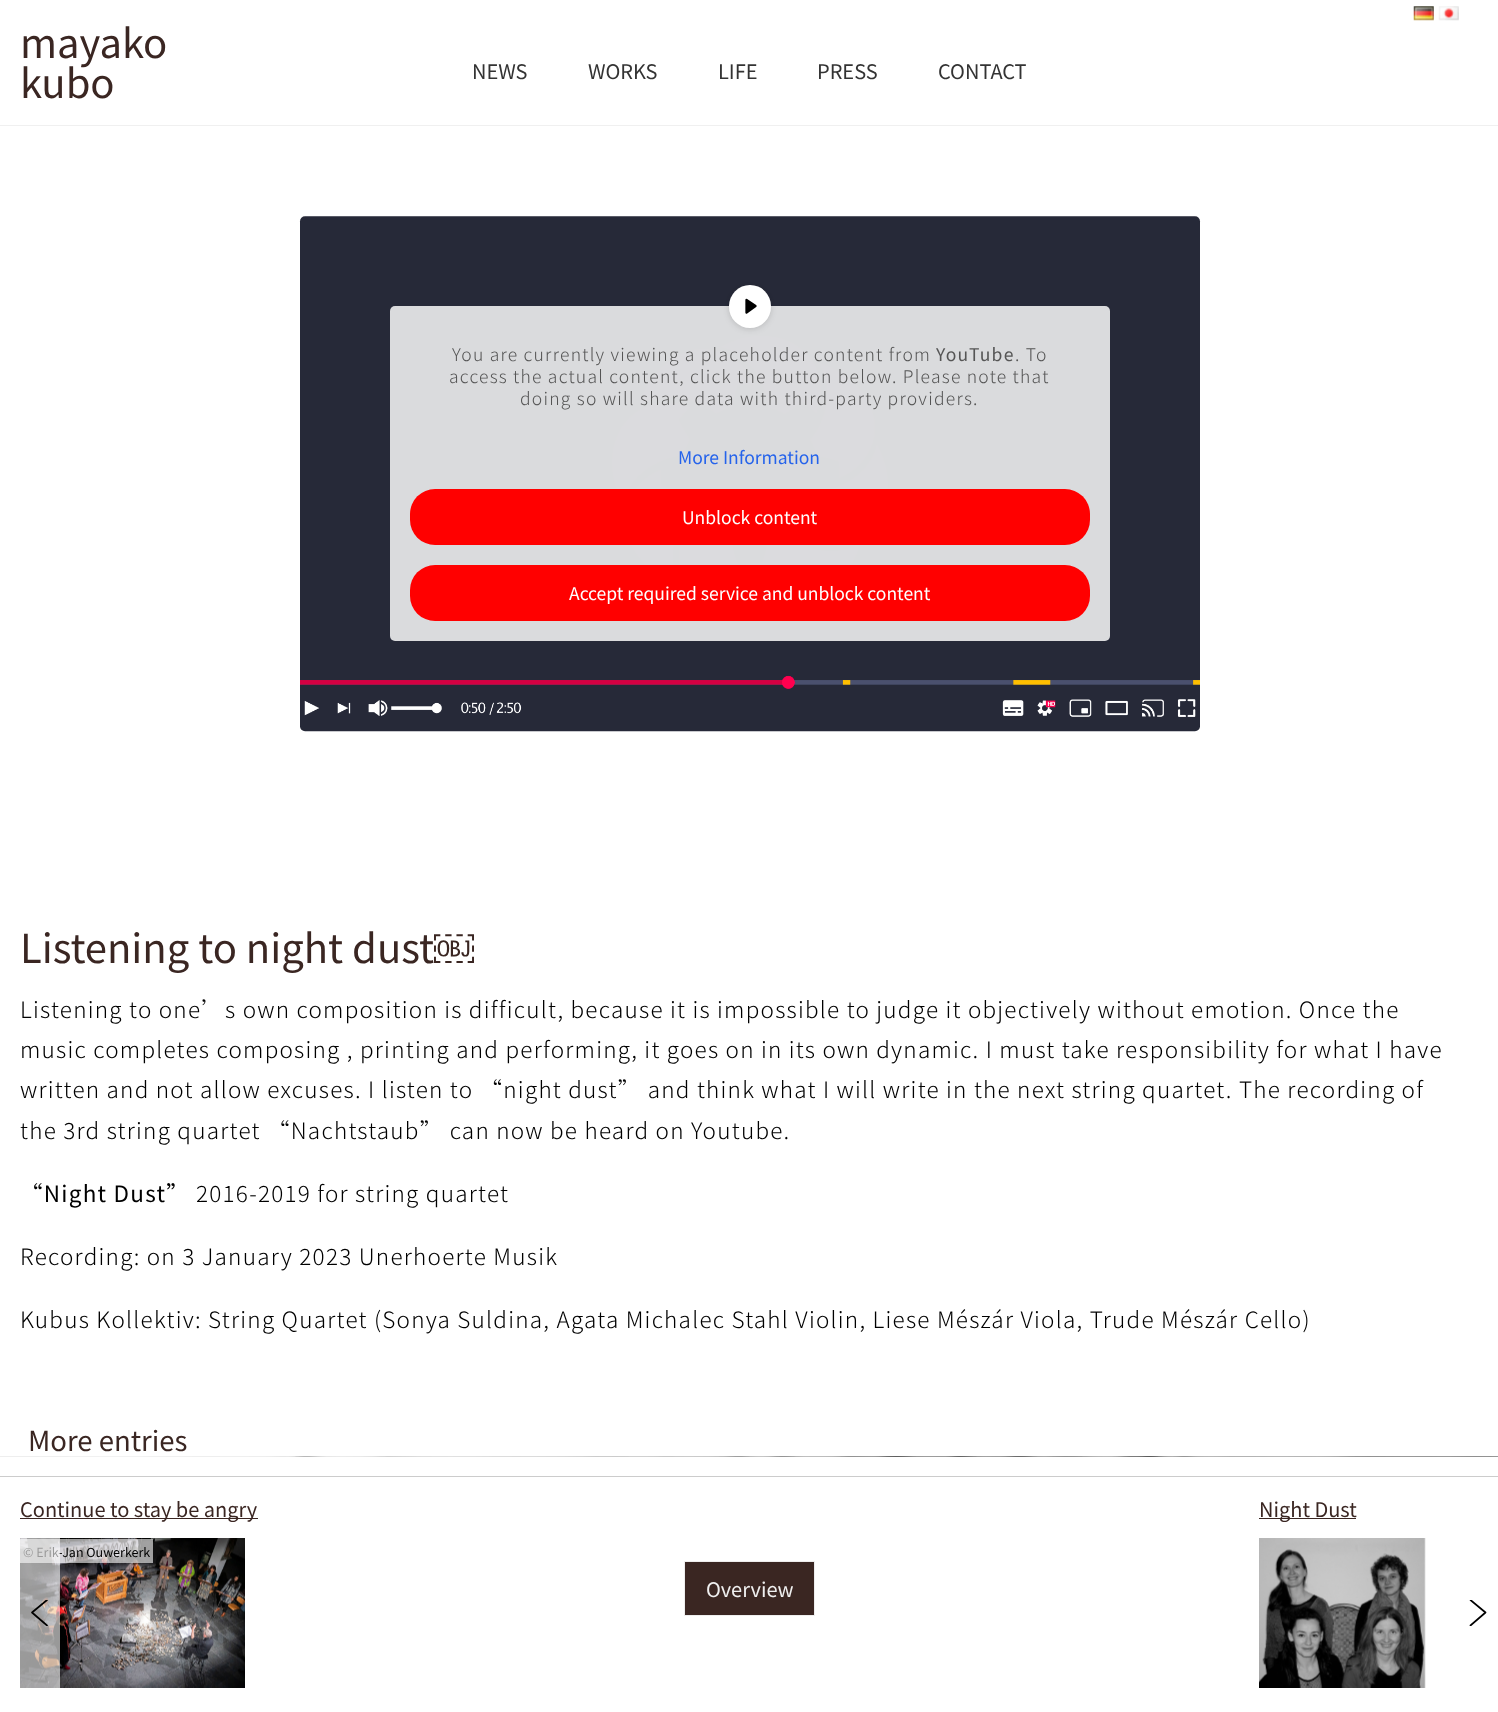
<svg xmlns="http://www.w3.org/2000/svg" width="1498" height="1712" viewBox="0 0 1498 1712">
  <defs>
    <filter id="blur1" x="-50%" y="-200%" width="200%" height="500%"><feGaussianBlur stdDeviation="3"/></filter>
    <clipPath id="clip1"><rect x="30" y="1600" width="20" height="26"/></clipPath>
    <clipPath id="clip2"><rect x="1469" y="1600" width="20" height="26"/></clipPath>
  </defs>
  <rect width="100%" height="100%" fill="#ffffff"/>
  <rect x="0" y="125" width="1498" height="1" fill="#f0f0f0"/>
  <image x="1413" y="6" width="21" height="15" href="img1.png"/>
  <image x="1438" y="6" width="21" height="15" href="img2.png"/>
  <text x="20" y="58" font-family="Noto Sans SC" font-size="40" fill="#3a2622">mayako</text>
  <text x="20" y="98" font-family="Noto Sans SC" font-size="40" fill="#3a2622">kubo</text>
  <text x="472" y="79" font-family="Noto Sans SC" font-size="20" fill="#333333">NEWS</text>
  <text x="588" y="79" font-family="Noto Sans SC" font-size="20" fill="#333333">WORKS</text>
  <text x="718" y="79" font-family="Noto Sans SC" font-size="20" fill="#333333">LIFE</text>
  <text x="817" y="79" font-family="Noto Sans SC" font-size="20" fill="#333333">PRESS</text>
  <text x="938" y="79" font-family="Noto Sans SC" font-size="20" fill="#333333">CONTACT</text>
  <image x="0" y="1456" width="1498" height="1" href="img3.png"/>
  <rect x="300" y="216" width="900" height="515" rx="5" fill="#fafafa"/>
  <image x="299" y="216" width="902" height="516" href="img4.png"/>
  <rect x="390" y="306" width="720" height="335" rx="5" fill="#fafafa" fill-opacity="0.85"/>
  <rect x="729" y="286" width="42" height="43" rx="21" fill="#000000" fill-opacity="0.15" filter="url(#blur1)"/>
  <rect x="729" y="285" width="42" height="43" rx="21" fill="#ffffff"/>
  <path d="M746.5 312.5V300L755.5 306Z" fill="#000000" stroke="#000000" stroke-width="2.3" stroke-linecap="round" stroke-linejoin="round"/>
  <text x="452" y="361" font-family="Noto Sans SC" font-size="17.5" font-weight="300" letter-spacing="1.25" fill="#555555">You are currently viewing a placeholder content from</text>
  <text x="936" y="361" font-family="Noto Sans SC" font-size="17.5" letter-spacing="1.25" fill="#555555">YouTube</text>
  <text x="1015" y="361" font-family="Noto Sans SC" font-size="17.5" font-weight="300" letter-spacing="1.25" fill="#555555">. To</text>
  <text x="449" y="383" font-family="Noto Sans SC" font-size="17.5" font-weight="300" letter-spacing="1.25" fill="#555555">access the actual content, click the button below. Please note that</text>
  <text x="520" y="405" font-family="Noto Sans SC" font-size="17.5" font-weight="300" letter-spacing="1.25" fill="#555555">doing so will share data with third-party providers.</text>
  <text x="678" y="464" font-family="Noto Sans SC" font-size="17.5" fill="#2563eb">More Information</text>
  <rect x="410" y="489" width="680" height="56" rx="25" fill="#ff0000"/>
  <text x="682" y="524" font-family="Noto Sans SC" font-size="17.5" fill="#ffffff">Unblock content</text>
  <rect x="410" y="565" width="680" height="56" rx="25" fill="#ff0000"/>
  <text x="569" y="600" font-family="Noto Sans SC" font-size="17.5" fill="#ffffff">Accept required service and unblock content</text>
  <text x="20" y="963" font-family="Noto Sans SC" font-size="40" fill="#3a2622">Listening to night dust</text>
  <text x="434" y="963" font-family="Liberation Sans" font-size="40" fill="#3a2622">￼</text>
  <text x="20" y="1018" font-family="Noto Sans SC" font-size="22.5" font-weight="300" letter-spacing="1.25" fill="#000000">Listening to one’s own composition is difficult, because it is impossible to judge it objectively without emotion. Once the</text>
  <text x="20" y="1058" font-family="Noto Sans SC" font-size="22.5" font-weight="300" letter-spacing="1.25" fill="#000000">music completes composing , printing and performing, it goes on in its own dynamic. I must take responsibility for what I have</text>
  <text x="20" y="1098" font-family="Noto Sans SC" font-size="22.5" font-weight="300" letter-spacing="1.25" fill="#000000">written and not allow excuses. I listen to “night dust” and think what I will write in the next string quartet. The recording of</text>
  <text x="20" y="1139" font-family="Noto Sans SC" font-size="22.5" font-weight="300" letter-spacing="1.25" fill="#000000">the 3rd string quartet “Nachtstaub” can now be heard on Youtube.</text>
  <text x="20" y="1202" font-family="Noto Sans SC" font-size="22.5" letter-spacing="1.25" fill="#000000">“Night Dust”</text>
  <text x="196" y="1202" font-family="Noto Sans SC" font-size="22.5" font-weight="300" letter-spacing="1.25" fill="#000000">2016-2019 for string quartet</text>
  <text x="20" y="1265" font-family="Noto Sans SC" font-size="22.5" font-weight="300" letter-spacing="1.25" fill="#000000">Recording: on 3 January 2023 Unerhoerte Musik</text>
  <text x="20" y="1328" font-family="Noto Sans SC" font-size="22.5" font-weight="300" letter-spacing="1.25" fill="#000000">Kubus Kollektiv: String Quartet (Sonya Suldina, Agata Michalec Stahl Violin, Liese Mészár Viola, Trude Mészár Cello)</text>
  <text x="28" y="1451" font-family="Noto Sans SC" font-size="27.5" fill="#3a2622">More entries</text>
  <rect x="0" y="1476" width="1498" height="1" fill="#cccccc"/>
  <rect x="20" y="1518" width="238" height="1" fill="#3a2622"/>
  <text x="20" y="1517" font-family="Noto Sans SC" font-size="20" fill="#3a2622">Continue to stay be angry</text>
  <image x="20" y="1538" width="225" height="150" href="img5.png"/>
  <rect x="20" y="1539" width="133" height="24" fill="#ffffff" fill-opacity="0.6"/>
  <text x="23" y="1557" font-family="Noto Sans SC" font-size="12.5" fill="#000000">© Erik-Jan Ouwerkerk</text>
  <rect x="20" y="1538" width="40" height="150" fill="#ffffff" fill-opacity="0.6"/>
  <g clip-path="url(#clip1)">
    <path d="M47 1625.5L32 1612.5L47 1600" fill="none" stroke="#000000" stroke-width="1.7" stroke-linecap="round" stroke-linejoin="round"/>
  </g>
  <rect x="1259" y="1518" width="97" height="1" fill="#3a2622"/>
  <text x="1259" y="1517" font-family="Noto Sans SC" font-size="20" fill="#3a2622">Night Dust</text>
  <image x="1259" y="1538" width="167" height="150" href="img6.png"/>
  <g clip-path="url(#clip2)">
    <path d="M1470.5 1600L1485.5 1612.5L1470.5 1625.5" fill="none" stroke="#000000" stroke-width="1.7" stroke-linecap="round" stroke-linejoin="round"/>
  </g>
  <rect x="684.5" y="1561.5" width="130" height="54" fill="#3a2622" stroke="#eeeeee"/>
  <text x="706" y="1597" font-family="Noto Sans SC" font-size="20" fill="#efefef">Overview</text>
</svg>
